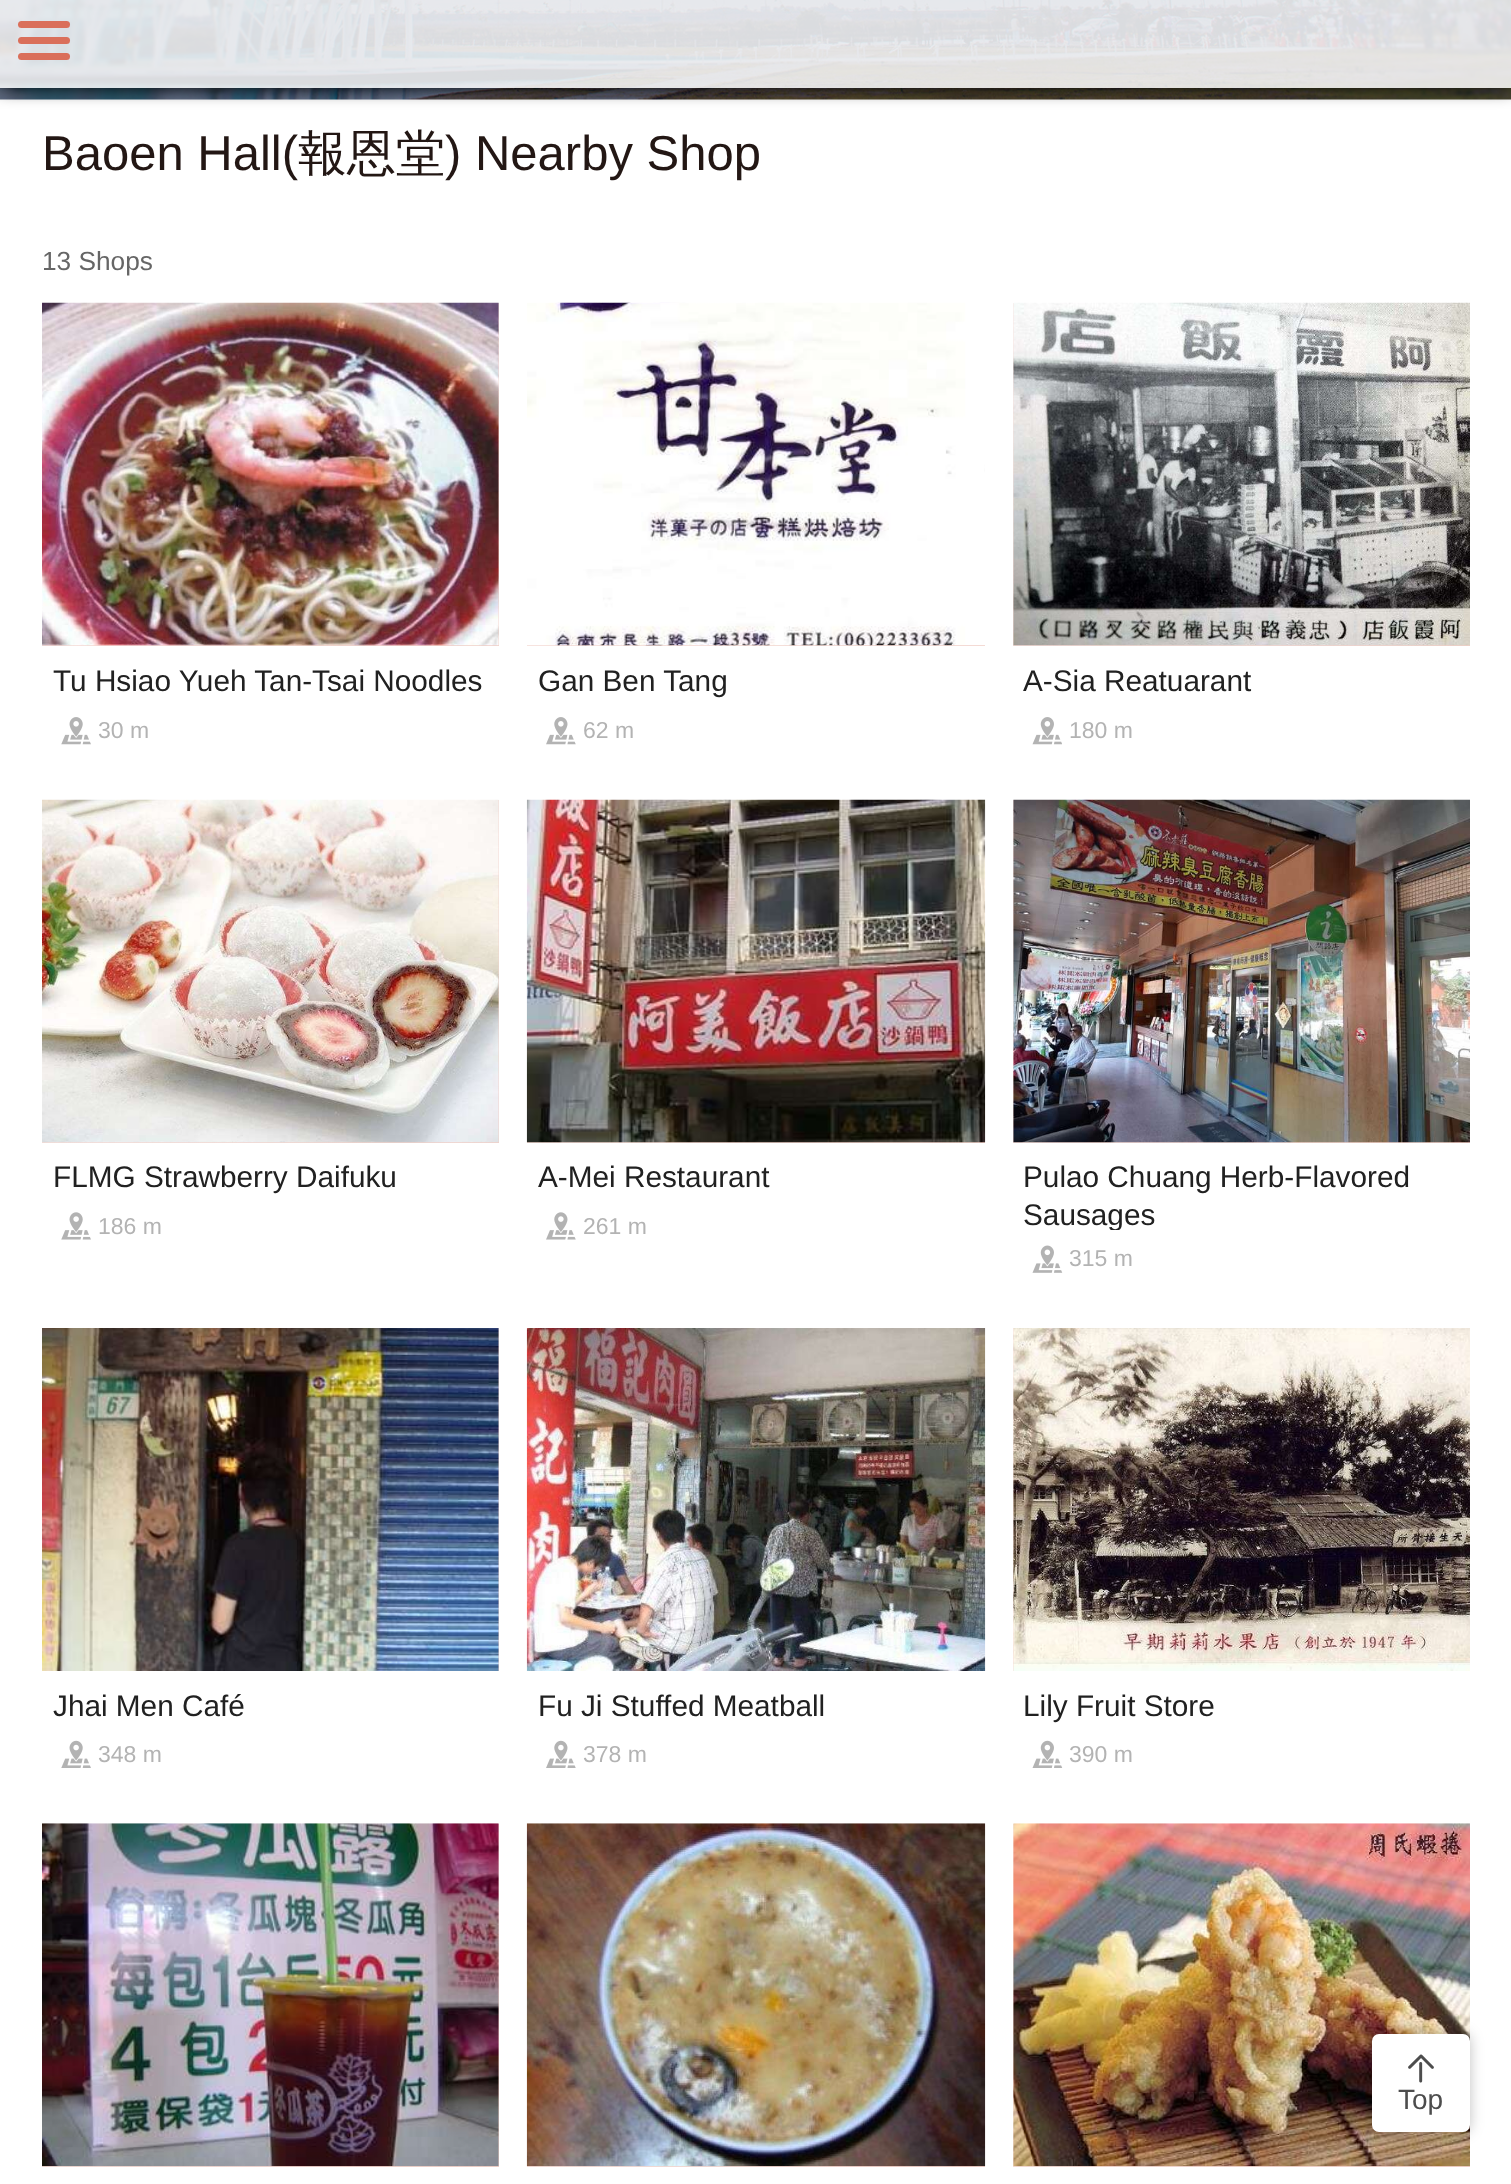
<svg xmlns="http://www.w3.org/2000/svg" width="1511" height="2184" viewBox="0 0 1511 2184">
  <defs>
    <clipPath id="clip1"><path d="M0 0H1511V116H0ZM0 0H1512V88H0Z" clip-rule="evenodd"/></clipPath>
    <filter id="blur1" x="-50%" y="-200%" width="200%" height="500%"><feGaussianBlur stdDeviation="9"/></filter>
    <linearGradient id="g1" gradientUnits="userSpaceOnUse" x1="70" y1="274" x2="470" y2="674"><stop offset="0" stop-color="#f7e4e0"/><stop offset="1" stop-color="#f0cec6"/></linearGradient>
    <linearGradient id="g2" gradientUnits="userSpaceOnUse" x1="556" y1="274" x2="956" y2="675"><stop offset="0" stop-color="#f7e4e0"/><stop offset="1" stop-color="#f0cec6"/></linearGradient>
    <linearGradient id="g3" gradientUnits="userSpaceOnUse" x1="1042" y1="274" x2="1442" y2="674"><stop offset="0" stop-color="#f7e4e0"/><stop offset="1" stop-color="#f0cec6"/></linearGradient>
    <linearGradient id="g4" gradientUnits="userSpaceOnUse" x1="70" y1="771" x2="470" y2="1171"><stop offset="0" stop-color="#f7e4e0"/><stop offset="1" stop-color="#f0cec6"/></linearGradient>
    <linearGradient id="g5" gradientUnits="userSpaceOnUse" x1="556" y1="771" x2="956" y2="1172"><stop offset="0" stop-color="#f7e4e0"/><stop offset="1" stop-color="#f0cec6"/></linearGradient>
    <linearGradient id="g6" gradientUnits="userSpaceOnUse" x1="1042" y1="771" x2="1442" y2="1171"><stop offset="0" stop-color="#f7e4e0"/><stop offset="1" stop-color="#f0cec6"/></linearGradient>
    <clipPath id="clip2"><rect x="1024" y="1160" width="436" height="70"/></clipPath>
    <linearGradient id="g7" gradientUnits="userSpaceOnUse" x1="70" y1="1300" x2="470" y2="1700"><stop offset="0" stop-color="#f7e4e0"/><stop offset="1" stop-color="#f0cec6"/></linearGradient>
    <linearGradient id="g8" gradientUnits="userSpaceOnUse" x1="1042" y1="1300" x2="1442" y2="1700"><stop offset="0" stop-color="#f7e4e0"/><stop offset="1" stop-color="#f0cec6"/></linearGradient>
    <linearGradient id="g9" gradientUnits="userSpaceOnUse" x1="70" y1="1795" x2="470" y2="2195"><stop offset="0" stop-color="#f7e4e0"/><stop offset="1" stop-color="#f0cec6"/></linearGradient>
    <linearGradient id="g10" gradientUnits="userSpaceOnUse" x1="556" y1="1795" x2="956" y2="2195"><stop offset="0" stop-color="#f7e4e0"/><stop offset="1" stop-color="#f0cec6"/></linearGradient>
    <linearGradient id="g11" gradientUnits="userSpaceOnUse" x1="1042" y1="1795" x2="1442" y2="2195"><stop offset="0" stop-color="#f7e4e0"/><stop offset="1" stop-color="#f0cec6"/></linearGradient>
    <filter id="blur2" x="-50%" y="-200%" width="200%" height="500%"><feGaussianBlur stdDeviation="7"/></filter>
  </defs>
  <rect width="100%" height="100%" fill="#ffffff"/>
  <image x="0" y="0" width="1511" height="100" href="img1.png"/>
  <g clip-path="url(#clip1)">
    <rect x="0" y="0" width="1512" height="88" fill="#000000" filter="url(#blur1)"/>
  </g>
  <rect x="0" y="0" width="1511" height="88" fill="#ffffff" fill-opacity="0.85"/>
  <rect x="18" y="21" width="52" height="7" rx="3.5" fill="#da6f5a"/>
  <rect x="18" y="37" width="52" height="7" rx="3.5" fill="#da6f5a"/>
  <rect x="18" y="53" width="52" height="7" rx="3.5" fill="#da6f5a"/>
  <text x="42" y="170" font-family="Liberation Sans" font-size="49" fill="#231714">Baoen Hall(</text>
  <text x="298" y="170" font-family="WenQuanYi Zen Hei" font-size="49" font-weight="500" fill="#231714">報恩堂</text>
  <text x="445" y="170" font-family="Liberation Sans" font-size="49" fill="#231714">) Nearby Shop</text>
  <text x="42" y="270" font-family="Liberation Sans" font-size="26.25" fill="#666666">13 Shops</text>
  <rect x="42" y="303" width="457" height="343" fill="url(#g1)"/>
  <image x="42" y="302" width="457" height="344" href="img2.png"/>
  <text x="53" y="691" font-family="Liberation Sans" font-size="29.75" fill="#212121">Tu Hsiao Yueh Tan-Tsai Noodles</text>
  <image x="61" y="717" width="30" height="28" href="img3.png"/>
  <text x="98" y="738" font-family="Liberation Sans" font-size="23" fill="#b3b3b3">30 m</text>
  <rect x="527" y="645" width="458" height="1" fill="url(#g2)"/>
  <image x="527" y="302" width="458" height="344" href="img4.png"/>
  <text x="538" y="691" font-family="Liberation Sans" font-size="29.75" fill="#212121">Gan Ben Tang</text>
  <image x="546" y="717" width="30" height="28" href="img5.png"/>
  <text x="583" y="738" font-family="Liberation Sans" font-size="23" fill="#b3b3b3">62 m</text>
  <rect x="1013" y="303" width="457" height="343" fill="url(#g3)"/>
  <image x="1013" y="302" width="457" height="344" href="img6.png"/>
  <text x="1023" y="691" font-family="Liberation Sans" font-size="29.75" fill="#212121">A-Sia Reatuarant</text>
  <image x="1032" y="717" width="30" height="28" href="img7.png"/>
  <text x="1069" y="738" font-family="Liberation Sans" font-size="23" fill="#b3b3b3">180 m</text>
  <rect x="42" y="800" width="457" height="343" fill="url(#g4)"/>
  <image x="42" y="799" width="457" height="344" href="img8.png"/>
  <text x="53" y="1187" font-family="Liberation Sans" font-size="29.75" fill="#212121">FLMG Strawberry Daifuku</text>
  <image x="61" y="1212" width="30" height="28" href="img9.png"/>
  <text x="98" y="1234" font-family="Liberation Sans" font-size="23" fill="#b3b3b3">186 m</text>
  <rect x="527" y="1142" width="458" height="1" fill="url(#g5)"/>
  <image x="526" y="799" width="460" height="344" href="img10.png"/>
  <text x="538" y="1187" font-family="Liberation Sans" font-size="29.75" fill="#212121">A-Mei Restaurant</text>
  <image x="546" y="1212" width="30" height="28" href="img11.png"/>
  <text x="583" y="1234" font-family="Liberation Sans" font-size="23" fill="#b3b3b3">261 m</text>
  <rect x="1013" y="800" width="457" height="343" fill="url(#g6)"/>
  <image x="1013" y="799" width="457" height="344" href="img12.png"/>
  <text x="1023" y="1187" font-family="Liberation Sans" font-size="29.75" fill="#212121">Pulao Chuang Herb-Flavored</text>
  <g clip-path="url(#clip2)">
    <text x="1023" y="1225" font-family="Liberation Sans" font-size="29.75" fill="#212121">Sausages</text>
  </g>
  <image x="1032" y="1245" width="31" height="28" href="img13.png"/>
  <text x="1069" y="1266" font-family="Liberation Sans" font-size="23" fill="#b3b3b3">315 m</text>
  <rect x="498" y="1328" width="1" height="343" fill="url(#g7)"/>
  <image x="42" y="1328" width="457" height="343" href="img14.png"/>
  <text x="53" y="1716" font-family="Liberation Sans" font-size="29.75" fill="#212121">Jhai Men Café</text>
  <image x="61" y="1740" width="30" height="28" href="img15.png"/>
  <text x="98" y="1762" font-family="Liberation Sans" font-size="23" fill="#b3b3b3">348 m</text>
  <image x="526" y="1328" width="460" height="343" href="img16.png"/>
  <text x="538" y="1716" font-family="Liberation Sans" font-size="29.75" fill="#212121">Fu Ji Stuffed Meatball</text>
  <image x="546" y="1740" width="30" height="28" href="img17.png"/>
  <text x="583" y="1762" font-family="Liberation Sans" font-size="23" fill="#b3b3b3">378 m</text>
  <rect x="1013" y="1328" width="1" height="343" fill="url(#g8)"/>
  <image x="1013" y="1328" width="457" height="343" href="img18.png"/>
  <text x="1023" y="1716" font-family="Liberation Sans" font-size="29.75" fill="#212121">Lily Fruit Store</text>
  <image x="1032" y="1740" width="31" height="28" href="img19.png"/>
  <text x="1069" y="1762" font-family="Liberation Sans" font-size="23" fill="#b3b3b3">390 m</text>
  <rect x="42" y="1824" width="457" height="343" fill="url(#g9)"/>
  <image x="42" y="1823" width="457" height="344" href="img20.png"/>
  <rect x="527" y="2166" width="458" height="1" fill="url(#g10)"/>
  <image x="526" y="1823" width="460" height="344" href="img21.png"/>
  <rect x="1013" y="1824" width="457" height="343" fill="url(#g11)"/>
  <image x="1013" y="1823" width="457" height="344" href="img22.png"/>
  <rect x="1372" y="2034" width="98" height="98" rx="7" fill="#000000" fill-opacity="0.25" filter="url(#blur2)"/>
  <rect x="1372" y="2034" width="98" height="98" rx="7" fill="#ffffff"/>
  <image x="1408" y="2054" width="26" height="29" href="img23.png"/>
  <text x="1398" y="2109" font-family="Liberation Sans" font-size="28" fill="#4d4d4d">Top</text>
</svg>
